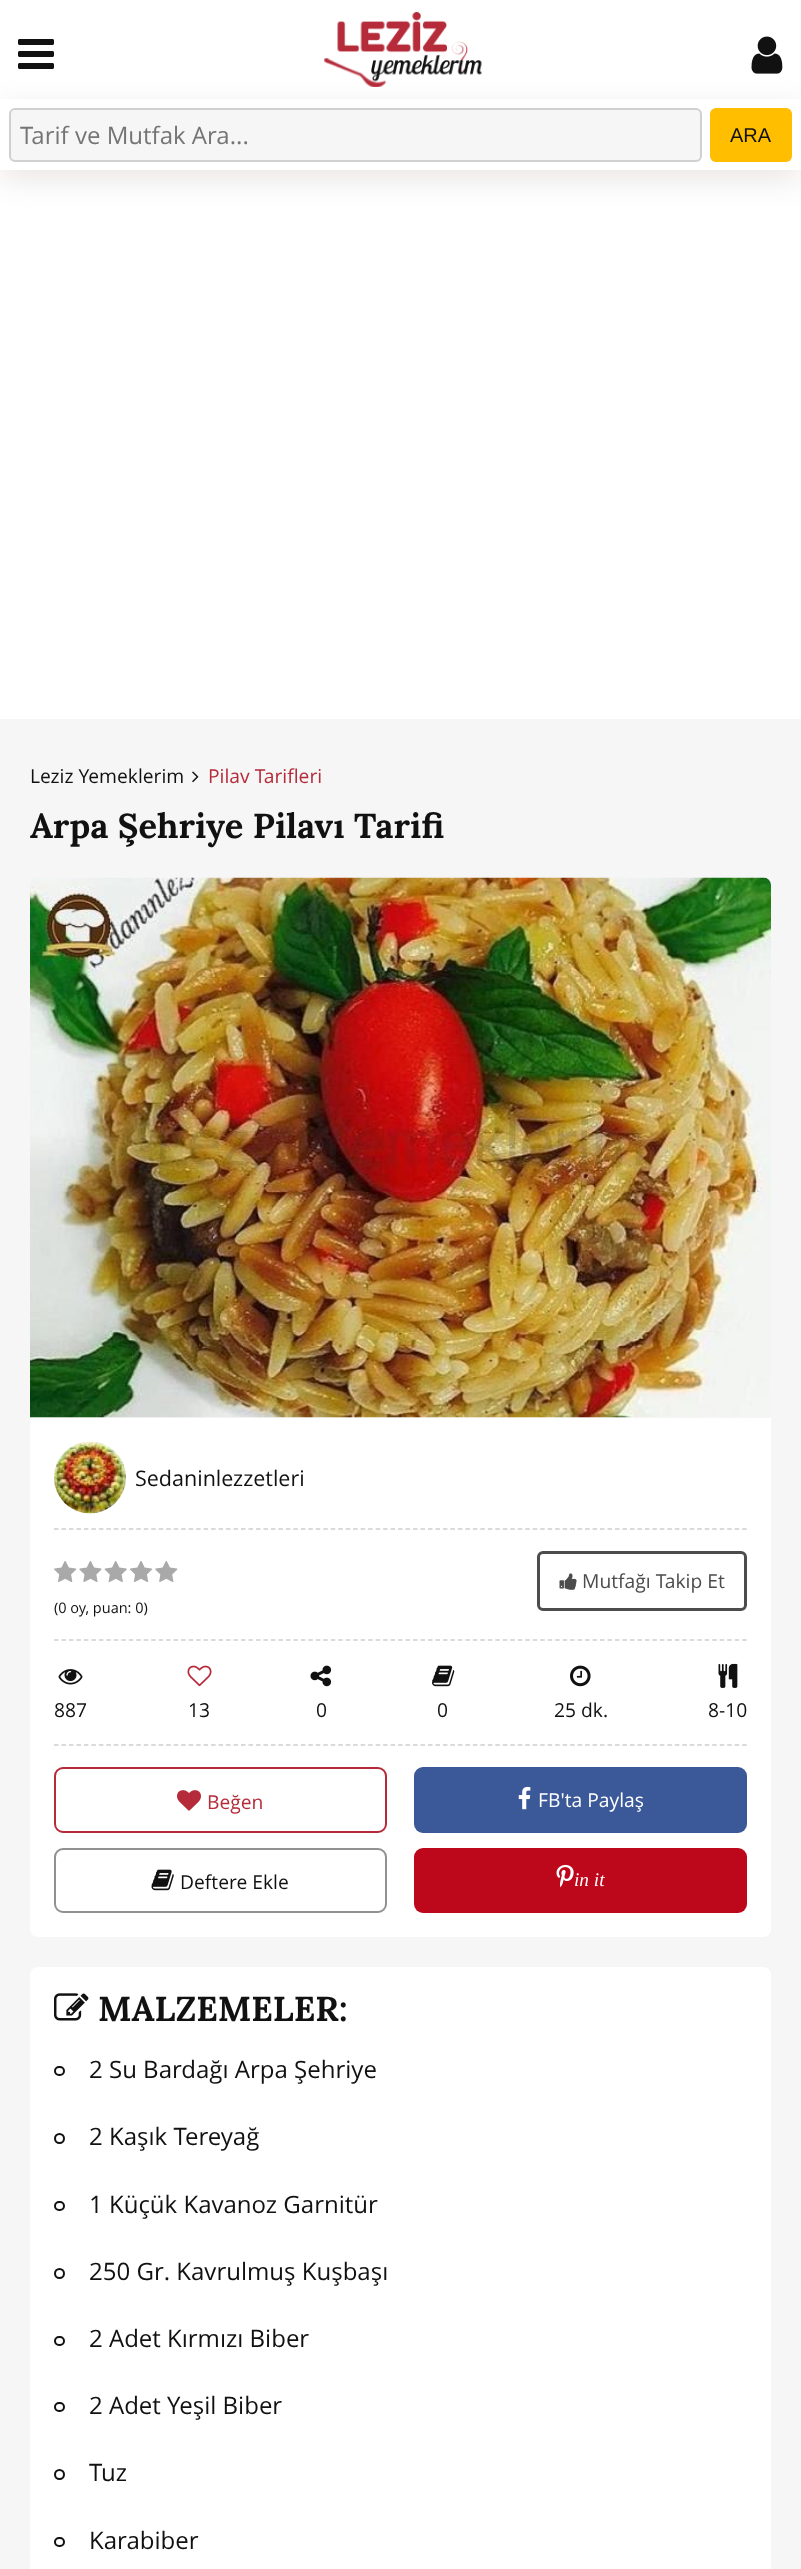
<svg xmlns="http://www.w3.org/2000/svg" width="801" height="2569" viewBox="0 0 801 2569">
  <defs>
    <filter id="blur1" x="-50%" y="-200%" width="200%" height="500%"><feGaussianBlur stdDeviation="15"/></filter>
  </defs>
  <rect width="100%" height="100%" fill="#f6f6f6"/>
  <rect x="0" y="0" width="801" height="719" fill="#ffffff"/>
  <rect x="0" y="108" width="801" height="71" fill="#391c04" fill-opacity="0.1" filter="url(#blur1)"/>
  <image x="18" y="39" width="36" height="30" href="img1.png"/>
  <image x="324" y="12" width="158" height="75" href="img2.png"/>
  <image x="751" y="36" width="32" height="38" href="img3.png"/>
  <rect x="0" y="99" width="801" height="71" fill="#ffffff"/>
  <rect x="10" y="109" width="691" height="52" rx="5" fill="#f6f6f6" stroke="#d0d0d0" stroke-width="2"/>
  <text x="20" y="144" font-family="Open Sans" font-size="24" fill="#757575">Tarif ve Mutfak Ara...</text>
  <rect x="710" y="108" width="82" height="54" rx="6" fill="#ffbf00"/>
  <text x="730" y="142" font-family="Liberation Sans" font-size="20" fill="#111111">ARA</text>
  <text x="30" y="783" font-family="Open Sans" font-size="19.25" fill="#111111">Leziz Yemeklerim</text>
  <image x="192" y="771" width="7" height="12" href="img4.png"/>
  <text x="208" y="783" font-family="Open Sans" font-size="19.25" fill="#b52b3a">Pilav Tarifleri</text>
  <text x="30" y="838" word-spacing="0.5" font-family="Lora" font-size="34.5" font-weight="bold" fill="#111111">Arpa Şehriye Pilavı Tarifi</text>
  <image x="30" y="877" width="741" height="541" href="img5.png"/>
  <path d="M30 1418H771V1929C771 1933.5 767.5 1937 763 1937H38C33.5 1937 30 1933.5 30 1929Z" fill="#ffffff"/>
  <path d="M54 1529H747" fill="none" stroke="#cecece" stroke-width="1.5" stroke-dasharray="4.5 2.98"/>
  <image x="54" y="1441" width="72" height="73" href="img6.png"/>
  <text x="135" y="1486" font-family="Open Sans" font-size="21.5" fill="#111111">Sedaninlezzetleri</text>
  <path d="M54 1640H747" fill="none" stroke="#cecece" stroke-width="1.5" stroke-dasharray="4.5 2.98"/>
  <rect x="538.5" y="1552.5" width="207" height="57" rx="4.5" fill="none" stroke="#4c4c4c" stroke-width="3"/>
  <image x="559" y="1573" width="18" height="17" href="img7.png"/>
  <text x="582" y="1588" font-family="Open Sans" font-size="19.25" fill="#4c4c4c">Mutfağı Takip Et</text>
  <image x="54" y="1560" width="124" height="22" href="img8.png"/>
  <text x="54" y="1613" font-family="Open Sans" font-size="14.5" fill="#111111">(0 oy, puan: 0)</text>
  <path d="M54 1745H747" fill="none" stroke="#cecece" stroke-width="1.5" stroke-dasharray="4.5 2.98"/>
  <image x="58" y="1669" width="25" height="16" href="img9.png"/>
  <text x="54" y="1717" font-family="Open Sans" font-size="19.25" fill="#111111">887</text>
  <image x="187" y="1665" width="25" height="22" href="img10.png"/>
  <text x="188" y="1717" font-family="Open Sans" font-size="19.25" fill="#111111">13</text>
  <image x="310" y="1665" width="22" height="22" href="img11.png"/>
  <text x="316" y="1717" font-family="Open Sans" font-size="19.25" fill="#111111">0</text>
  <image x="432" y="1665" width="23" height="22" href="img12.png"/>
  <text x="437" y="1717" font-family="Open Sans" font-size="19.25" fill="#111111">0</text>
  <image x="570" y="1665" width="21" height="22" href="img13.png"/>
  <text x="554" y="1717" font-family="Open Sans" font-size="19.25" fill="#111111">25 dk.</text>
  <image x="718" y="1663" width="20" height="25" href="img14.png"/>
  <text x="708" y="1717" font-family="Open Sans" font-size="19.25" fill="#111111">8-10</text>
  <rect x="55" y="1768" width="331" height="64" rx="8" fill="none" stroke="#b52b3a" stroke-width="2"/>
  <image x="177" y="1790" width="24" height="21" href="img15.png"/>
  <text x="207" y="1809" font-family="Open Sans" font-size="19.25" fill="#b52b3a">Beğen</text>
  <rect x="414" y="1767" width="333" height="66" rx="9" fill="#3b5998"/>
  <image x="518" y="1786" width="13" height="24" href="img16.png"/>
  <text x="538" y="1807" font-family="Open Sans" font-size="19.25" fill="#ffffff">FB'ta Paylaş</text>
  <rect x="55" y="1849" width="331" height="63" rx="8" fill="none" stroke="#919191" stroke-width="2"/>
  <image x="151" y="1869" width="23" height="22" href="img17.png"/>
  <text x="180" y="1889" font-family="Open Sans" font-size="19.25" fill="#111111">Deftere Ekle</text>
  <rect x="414" y="1848" width="333" height="65" rx="9" fill="#bd081c"/>
  <image x="556" y="1864" width="18" height="24" href="img18.png"/>
  <text x="574" y="1886" font-family="Liberation Serif" font-size="19.25" font-style="italic" fill="#ffffff">in it</text>
  <rect x="30" y="1967" width="741" height="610" rx="8" fill="#ffffff"/>
  <image x="54" y="1993" width="35" height="28" href="img19.png"/>
  <text x="98" y="2021" font-family="Lora" font-size="34.5" font-weight="bold" fill="#111111">MALZEMELER:</text>
  <rect x="55" y="2067" width="9" height="8" rx="4" fill="none" stroke="#111111" stroke-width="2"/>
  <text x="89" y="2078" font-family="Open Sans" font-size="24" fill="#111111">2 Su Bardağı Arpa Şehriye</text>
  <circle cx="59.5" cy="2138.5" r="4.5" fill="none" stroke="#111111" stroke-width="2"/>
  <text x="89" y="2145" font-family="Open Sans" font-size="24" fill="#111111">2 Kaşık Tereyağ</text>
  <rect x="55" y="2202" width="9" height="8" rx="4" fill="none" stroke="#111111" stroke-width="2"/>
  <text x="89" y="2213" font-family="Open Sans" font-size="24" fill="#111111">1 Küçük Kavanoz Garnitür</text>
  <circle cx="59.5" cy="2273.5" r="4.5" fill="none" stroke="#111111" stroke-width="2"/>
  <text x="89" y="2280" font-family="Open Sans" font-size="24" fill="#111111">250 Gr. Kavrulmuş Kuşbaşı</text>
  <rect x="55" y="2337" width="9" height="8" rx="4" fill="none" stroke="#111111" stroke-width="2"/>
  <text x="89" y="2347" font-family="Open Sans" font-size="24" fill="#111111">2 Adet Kırmızı Biber</text>
  <rect x="55" y="2403" width="9" height="8" rx="4" fill="none" stroke="#111111" stroke-width="2"/>
  <text x="89" y="2414" font-family="Open Sans" font-size="24" fill="#111111">2 Adet Yeşil Biber</text>
  <circle cx="59.5" cy="2474.5" r="4.5" fill="none" stroke="#111111" stroke-width="2"/>
  <text x="89" y="2481" font-family="Open Sans" font-size="24" fill="#111111">Tuz</text>
  <rect x="55" y="2538" width="9" height="8" rx="4" fill="none" stroke="#111111" stroke-width="2"/>
  <text x="89" y="2549" font-family="Open Sans" font-size="24" fill="#111111">Karabiber</text>
</svg>
